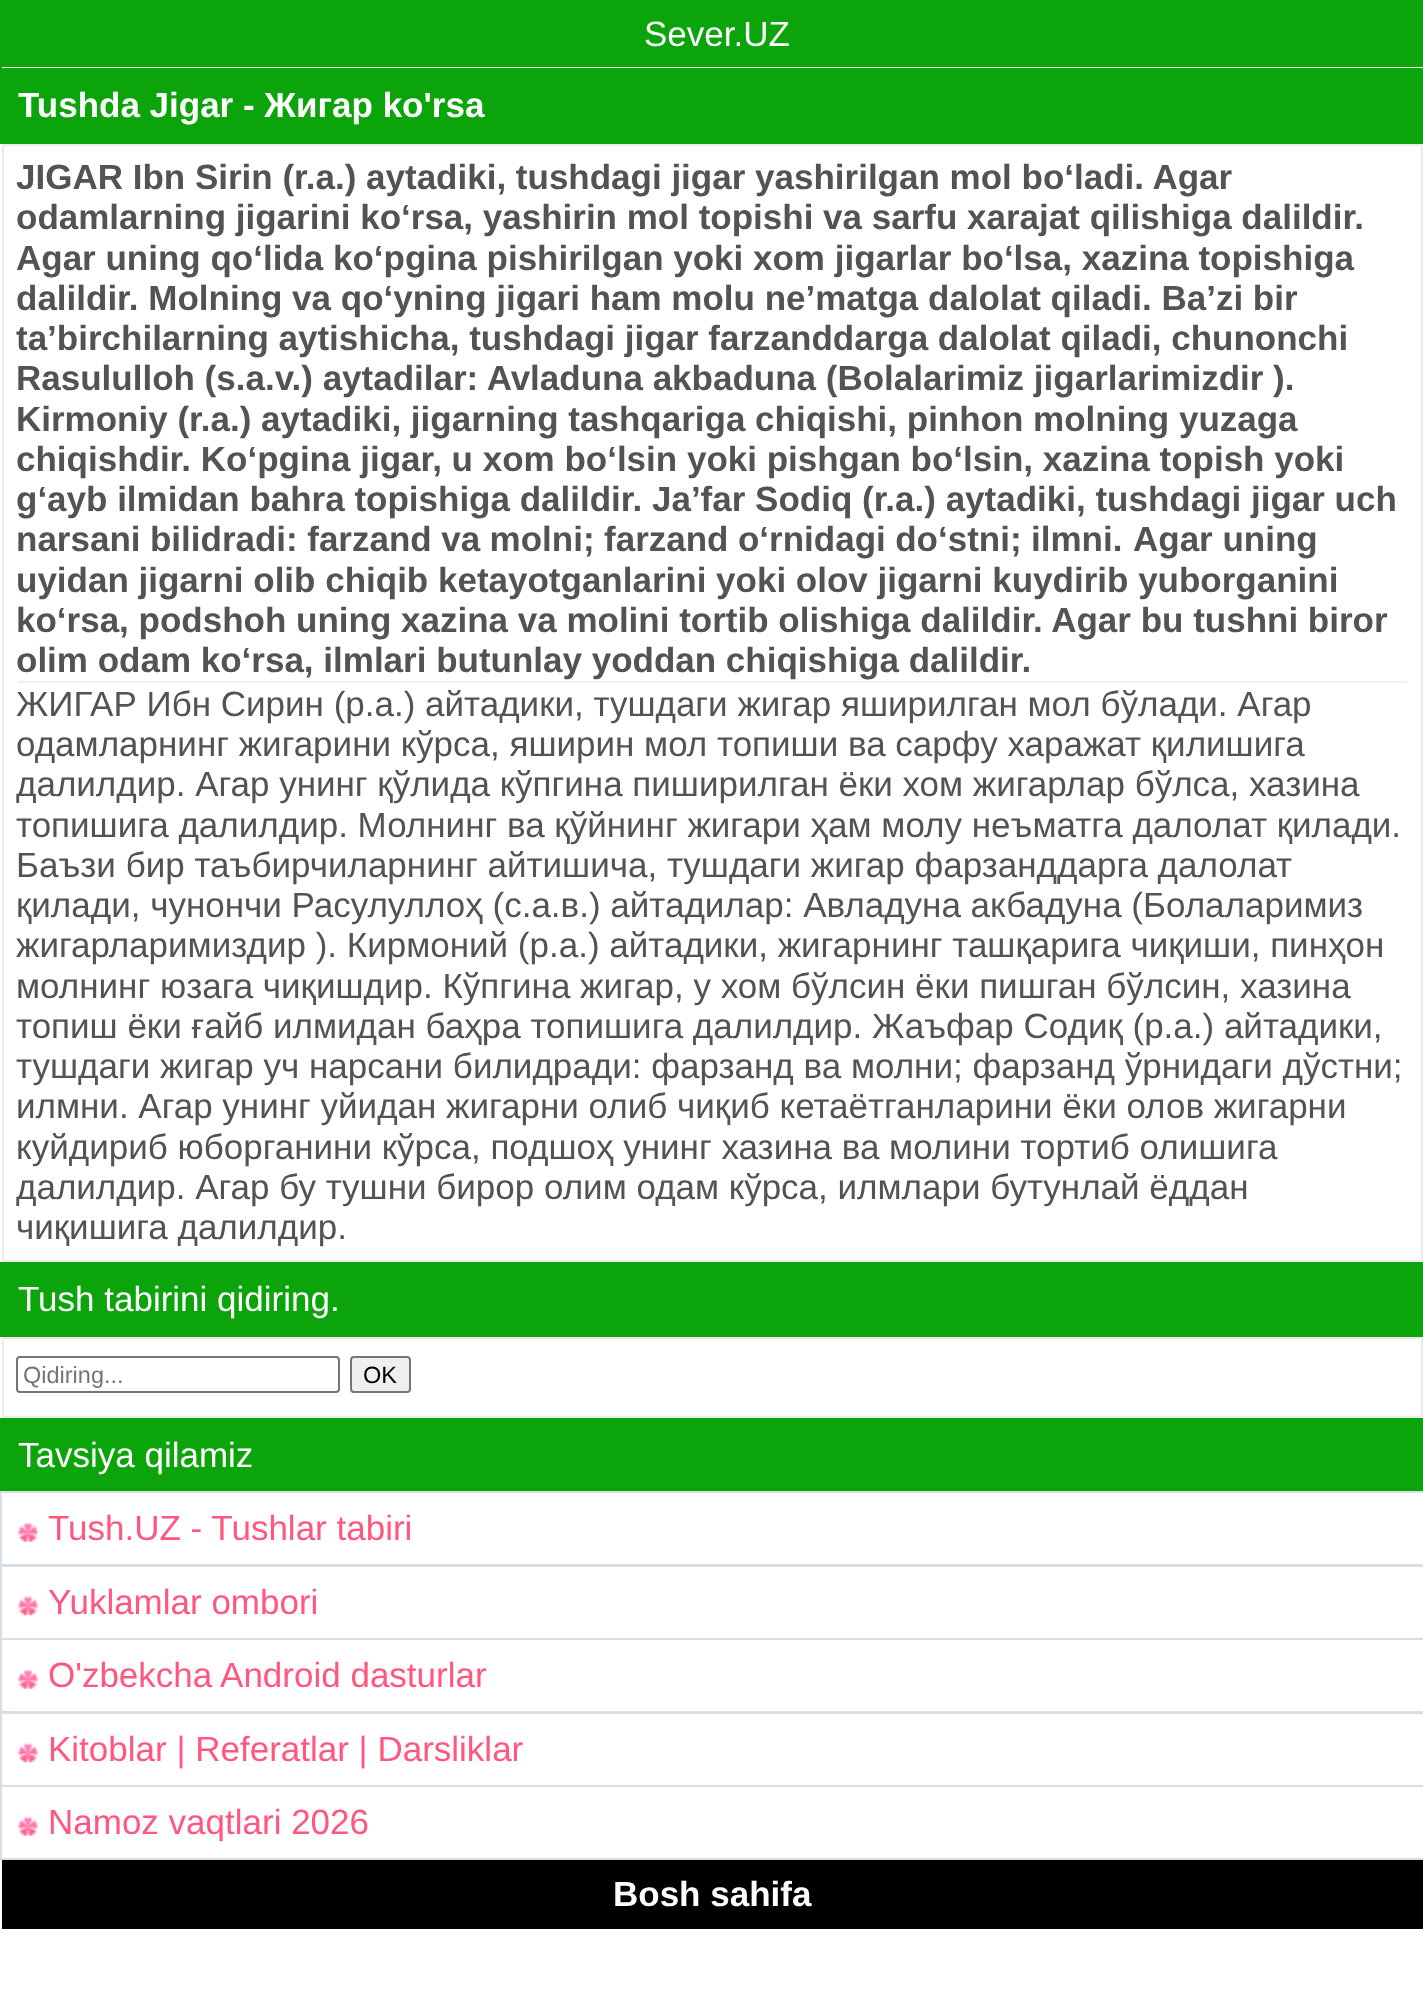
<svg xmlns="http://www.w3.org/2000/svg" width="1423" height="1991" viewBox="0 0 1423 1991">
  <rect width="100%" height="100%" fill="#ffffff"/>
  <rect x="1" y="1" width="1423" height="68" fill="none" stroke="#0ba40b" stroke-width="2"/>
  <rect x="2" y="2" width="1421" height="65" fill="#0ba40b"/>
  <text x="644" y="46" font-family="Liberation Sans" font-size="35" fill="#ffffff">Sever.UZ</text>
  <rect x="1" y="69" width="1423" height="74" fill="none" stroke="#0ba40b" stroke-width="2"/>
  <rect x="2" y="70" width="1421" height="72" fill="#0ba40b"/>
  <text x="18" y="117" font-family="Liberation Sans" font-size="35" font-weight="bold" fill="#ffffff">Tushda Jigar - Жигар ko'rsa</text>
  <rect x="3" y="145" width="1419" height="1116" rx="1" fill="none" stroke="#ececec" stroke-width="2"/>
  <text x="16" y="189" font-family="Liberation Sans" font-size="35" font-weight="bold" fill="#535255">JIGAR Ibn Sirin (r.a.) aytadiki, tushdagi jigar yashirilgan mol bo‘ladi. Agar</text>
  <text x="16" y="229" font-family="Liberation Sans" font-size="35" font-weight="bold" fill="#535255">odamlarning jigarini ko‘rsa, yashirin mol topishi va sarfu xarajat qilishiga dalildir.</text>
  <text x="16" y="270" font-family="Liberation Sans" font-size="35" font-weight="bold" fill="#535255">Agar uning qo‘lida ko‘pgina pishirilgan yoki xom jigarlar bo‘lsa, xazina topishiga</text>
  <text x="16" y="310" font-family="Liberation Sans" font-size="35" font-weight="bold" fill="#535255">dalildir. Molning va qo‘yning jigari ham molu ne’matga dalolat qiladi. Ba’zi bir</text>
  <text x="16" y="350" font-family="Liberation Sans" font-size="35" font-weight="bold" fill="#535255">ta’birchilarning aytishicha, tushdagi jigar farzanddarga dalolat qiladi, chunonchi</text>
  <text x="16" y="390" font-family="Liberation Sans" font-size="35" font-weight="bold" fill="#535255">Rasululloh (s.a.v.) aytadilar: Avladuna akbaduna (Bolalarimiz jigarlarimizdir ).</text>
  <text x="16" y="431" font-family="Liberation Sans" font-size="35" font-weight="bold" fill="#535255">Kirmoniy (r.a.) aytadiki, jigarning tashqariga chiqishi, pinhon molning yuzaga</text>
  <text x="16" y="471" font-family="Liberation Sans" font-size="35" font-weight="bold" fill="#535255">chiqishdir. Ko‘pgina jigar, u xom bo‘lsin yoki pishgan bo‘lsin, xazina topish yoki</text>
  <text x="16" y="511" font-family="Liberation Sans" font-size="35" font-weight="bold" fill="#535255">g‘ayb ilmidan bahra topishiga dalildir. Ja’far Sodiq (r.a.) aytadiki, tushdagi jigar uch</text>
  <text x="16" y="551" word-spacing="-0.25" font-family="Liberation Sans" font-size="35" font-weight="bold" fill="#535255">narsani bilidradi: farzand va molni; farzand o‘rnidagi do‘stni; ilmni.</text>
  <text x="1133" y="551" font-family="Liberation Sans" font-size="35" font-weight="bold" fill="#535255">Agar uning</text>
  <text x="16" y="592" font-family="Liberation Sans" font-size="35" font-weight="bold" fill="#535255">uyidan jigarni olib chiqib ketayotganlarini yoki olov jigarni kuydirib yuborganini</text>
  <text x="16" y="632" font-family="Liberation Sans" font-size="35" font-weight="bold" fill="#535255">ko‘rsa, podshoh uning xazina va molini tortib olishiga dalildir. Agar bu tushni biror</text>
  <text x="16" y="672" font-family="Liberation Sans" font-size="35" font-weight="bold" fill="#535255">olim odam ko‘rsa, ilmlari butunlay yoddan chiqishiga dalildir.</text>
  <rect x="16" y="681" width="1393" height="2" fill="#f0f0f0"/>
  <rect x="1407" y="681" width="2" height="4" fill="#ffffff"/>
  <rect x="16" y="681" width="2" height="4" fill="#ffffff"/>
  <text x="16" y="716" font-family="Liberation Sans" font-size="35" fill="#535255">ЖИГАР Ибн Сирин (р.а.) айтадики, тушдаги жигар яширилган мол бўлади. Агар</text>
  <text x="16" y="756" font-family="Liberation Sans" font-size="35" fill="#535255">одамларнинг жигарини кўрса, яширин мол топиши ва сарфу харажат қилишига</text>
  <text x="16" y="796" font-family="Liberation Sans" font-size="35" fill="#535255">далилдир. Агар унинг қўлида кўпгина пиширилган ёки хом жигарлар бўлса, хазина</text>
  <text x="16" y="837" font-family="Liberation Sans" font-size="35" fill="#535255">топишига далилдир. Молнинг ва қўйнинг жигари ҳам молу неъматга далолат қилади.</text>
  <text x="16" y="877" font-family="Liberation Sans" font-size="35" fill="#535255">Баъзи бир таъбирчиларнинг айтишича, тушдаги жигар фарзанддарга далолат</text>
  <text x="16" y="917" font-family="Liberation Sans" font-size="35" fill="#535255">қилади, чунончи Расулуллоҳ (с.а.в.) айтадилар: Авладуна акбадуна (Болаларимиз</text>
  <text x="16" y="957" font-family="Liberation Sans" font-size="35" fill="#535255">жигарларимиздир ). Кирмоний (р.а.) айтадики, жигарнинг ташқарига чиқиши, пинҳон</text>
  <text x="16" y="998" font-family="Liberation Sans" font-size="35" fill="#535255">молнинг юзага чиқишдир. Кўпгина жигар, у хом бўлсин ёки пишган бўлсин, хазина</text>
  <text x="16" y="1038" font-family="Liberation Sans" font-size="35" fill="#535255">топиш ёки ғайб илмидан баҳра топишига далилдир. Жаъфар Содиқ (р.а.) айтадики,</text>
  <text x="16" y="1078" font-family="Liberation Sans" font-size="35" fill="#535255">тушдаги жигар уч нарсани билидради: фарзанд ва молни; фарзанд ўрнидаги дўстни;</text>
  <text x="16" y="1118" font-family="Liberation Sans" font-size="35" fill="#535255">илмни. Агар унинг уйидан жигарни олиб чиқиб кетаётганларини ёки олов жигарни</text>
  <text x="16" y="1159" font-family="Liberation Sans" font-size="35" fill="#535255">куйдириб юборганини кўрса, подшоҳ унинг хазина ва молини тортиб олишига</text>
  <text x="16" y="1199" font-family="Liberation Sans" font-size="35" fill="#535255">далилдир. Агар бу тушни бирор олим одам кўрса, илмлари бутунлай ёддан</text>
  <text x="16" y="1239" font-family="Liberation Sans" font-size="35" fill="#535255">чиқишига далилдир.</text>
  <rect x="1" y="1263" width="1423" height="73" fill="none" stroke="#0ba40b" stroke-width="2"/>
  <rect x="2" y="1264" width="1421" height="71" fill="#0ba40b"/>
  <text x="18" y="1311" font-family="Liberation Sans" font-size="35" fill="#ffffff">Tush tabirini qidiring.</text>
  <rect x="3" y="1338" width="1419" height="79" rx="1" fill="none" stroke="#ececec" stroke-width="2"/>
  <rect x="17" y="1357" width="322" height="35" rx="3" fill="none" stroke="#767676" stroke-width="2"/>
  <text x="23" y="1383" font-family="Liberation Sans" font-size="23.5" fill="#757575">Qidiring...</text>
  <rect x="351" y="1357" width="59" height="35" rx="3" fill="#efefef" stroke="#767676" stroke-width="2"/>
  <text x="363" y="1383" font-family="Liberation Sans" font-size="23.5" fill="#000000">OK</text>
  <rect x="1" y="1419" width="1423" height="73" fill="none" stroke="#0ba40b" stroke-width="2"/>
  <rect x="2" y="1420" width="1421" height="71" fill="#0ba40b"/>
  <text x="18" y="1467" font-family="Liberation Sans" font-size="35" fill="#ffffff">Tavsiya qilamiz</text>
  <rect x="1" y="1492" width="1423" height="73" fill="none" stroke="#d8dee5" stroke-width="2"/>
  <image x="17" y="1522" width="22" height="20" href="img1.png"/>
  <text x="48" y="1540" font-family="Liberation Sans" font-size="35" fill="#ff577e">Tush.UZ - Tushlar tabiri</text>
  <rect x="1" y="1566" width="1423" height="73" fill="none" stroke="#d8dee5" stroke-width="2"/>
  <image x="17" y="1595" width="22" height="21" href="img2.png"/>
  <text x="48" y="1614" font-family="Liberation Sans" font-size="35" fill="#ff577e">Yuklamlar ombori</text>
  <rect x="1" y="1639" width="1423" height="73" fill="none" stroke="#d8dee5" stroke-width="2"/>
  <image x="17" y="1669" width="22" height="20" href="img1.png"/>
  <text x="48" y="1687" font-family="Liberation Sans" font-size="35" fill="#ff577e">O'zbekcha Android dasturlar</text>
  <rect x="1" y="1713" width="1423" height="73" fill="none" stroke="#d8dee5" stroke-width="2"/>
  <image x="17" y="1742" width="22" height="21" href="img2.png"/>
  <text x="48" y="1761" font-family="Liberation Sans" font-size="35" fill="#ff577e">Kitoblar | Referatlar | Darsliklar</text>
  <rect x="1" y="1786" width="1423" height="73" fill="none" stroke="#d8dee5" stroke-width="2"/>
  <image x="17" y="1816" width="22" height="20" href="img1.png"/>
  <text x="48" y="1834" font-family="Liberation Sans" font-size="35" fill="#ff577e">Namoz vaqtlari 2026</text>
  <rect x="2" y="1860" width="1421" height="69" fill="#000000"/>
  <text x="613" y="1906" font-family="Liberation Sans" font-size="35" font-weight="bold" fill="#ffffff">Bosh sahifa</text>
</svg>
